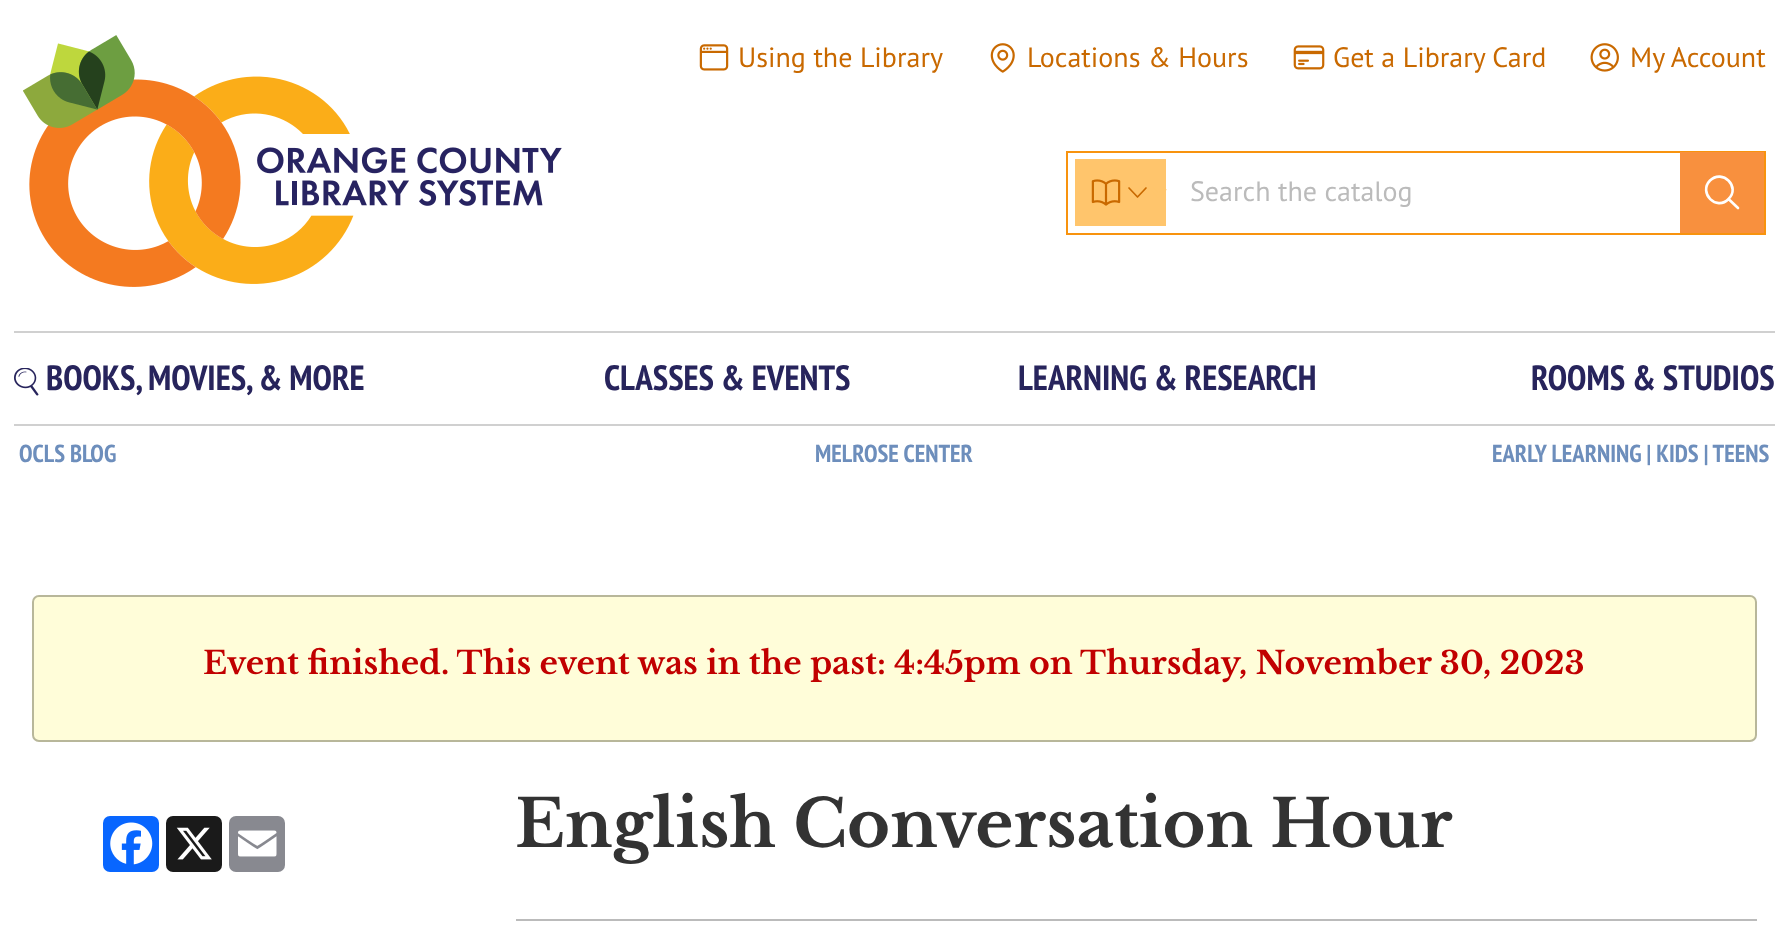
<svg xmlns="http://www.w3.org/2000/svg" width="1788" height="929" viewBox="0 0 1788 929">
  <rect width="100%" height="100%" fill="#ffffff"/>
  <image x="23" y="35" width="539" height="252" href="img1.png"/>
  <image x="699" y="44" width="30" height="27" href="img2.png"/>
  <text x="738" y="67" font-family="PT Sans" font-size="28" fill="#c96900">Using the Library</text>
  <image x="990" y="43" width="25" height="30" href="img3.png"/>
  <text x="1027" y="67" font-family="PT Sans" font-size="28" fill="#c96900">Locations &amp; Hours</text>
  <image x="1293" y="45" width="32" height="25" href="img4.png"/>
  <text x="1333" y="67" font-family="PT Sans" font-size="28" fill="#c96900">Get a Library Card</text>
  <image x="1590" y="43" width="29" height="29" href="img5.png"/>
  <text x="1630" y="67" font-family="PT Sans" font-size="28" fill="#c96900">My Account</text>
  <rect x="1067" y="152" width="698" height="82" fill="none" stroke="#f8930e" stroke-width="2"/>
  <rect x="1075" y="159" width="91" height="67" fill="#ffc56c"/>
  <image x="1091" y="179" width="30" height="27" href="img6.png"/>
  <path d="M1146 188L1137.5 197L1129 188" fill="none" stroke="#c96900" stroke-width="1.7" stroke-linecap="round" stroke-linejoin="round"/>
  <path d="M1151.5 188.5L1158.5 195.5L1165.5 188.5" fill="none" stroke="#ffc56c" stroke-width="3.5"/>
  <text x="1190" y="201" font-family="PT Sans" font-size="28" fill="#bbbbbb">Search the catalog</text>
  <rect x="1680" y="152" width="84" height="81" fill="#f8903e"/>
  <path d="M1738 208L1728.5 199M1728.5 199C1741 187 1722.5 168.5 1710 180.5C1698 193 1716.5 211.5 1728.5 199Z" fill="none" stroke="#ffffff" stroke-width="2.6" stroke-linecap="round" stroke-linejoin="round"/>
  <image x="14" y="368" width="25" height="28" href="img7.png"/>
  <text x="46" y="390" font-family="PT Sans Narrow" font-size="35" font-weight="bold" fill="#27245c">BOOKS, MOVIES, &amp; MORE</text>
  <text x="604" y="390" font-family="PT Sans Narrow" font-size="35" font-weight="bold" fill="#27245c">CLASSES &amp; EVENTS</text>
  <text x="1018" y="390" font-family="PT Sans Narrow" font-size="35" font-weight="bold" fill="#27245c">LEARNING &amp; RESEARCH</text>
  <rect x="14" y="331" width="1761" height="2" fill="#d0d0d0"/>
  <rect x="14" y="424" width="1761" height="2" fill="#d0d0d0"/>
  <text x="1531" y="390" font-family="PT Sans Narrow" font-size="35" font-weight="bold" fill="#27245c">ROOMS &amp; STUDIOS</text>
  <text x="19" y="462" font-family="PT Sans Narrow" font-size="24.5" font-weight="bold" fill="#6d8ebc">OCLS BLOG</text>
  <text x="815" y="462" font-family="PT Sans Narrow" font-size="24.5" font-weight="bold" fill="#6d8ebc">MELROSE CENTER</text>
  <text x="1492" y="462" font-family="PT Sans Narrow" font-size="24.5" font-weight="bold" fill="#6d8ebc">EARLY LEARNING | KIDS | TEENS</text>
  <rect x="33" y="596" width="1723" height="145" rx="6" fill="#fffdd9" stroke="#b8b79a" stroke-width="2"/>
  <text x="203" y="674" font-family="Libre Baskerville" font-size="31.5" font-weight="bold" fill="#c10000">Event finished. This event was in the past: 4:45pm on Thursday, November 30, 2023</text>
  <rect x="103" y="816" width="56" height="56" rx="7" fill="#0866ff"/>
  <image x="110" y="822" width="43" height="43" href="img8.png"/>
  <rect x="166" y="816" width="56" height="56" rx="7" fill="#1a1a1a"/>
  <image x="176" y="827" width="36" height="33" href="img9.png"/>
  <rect x="229" y="816" width="56" height="56" rx="7" fill="#888990"/>
  <image x="238" y="830" width="39" height="27" href="img10.png"/>
  <text x="515" y="847" font-family="Libre Baskerville" font-size="65.3" font-weight="bold" fill="#333333">English Conversation Hour</text>
  <rect x="516" y="919" width="1241" height="2" fill="#bbbbbb"/>
</svg>
